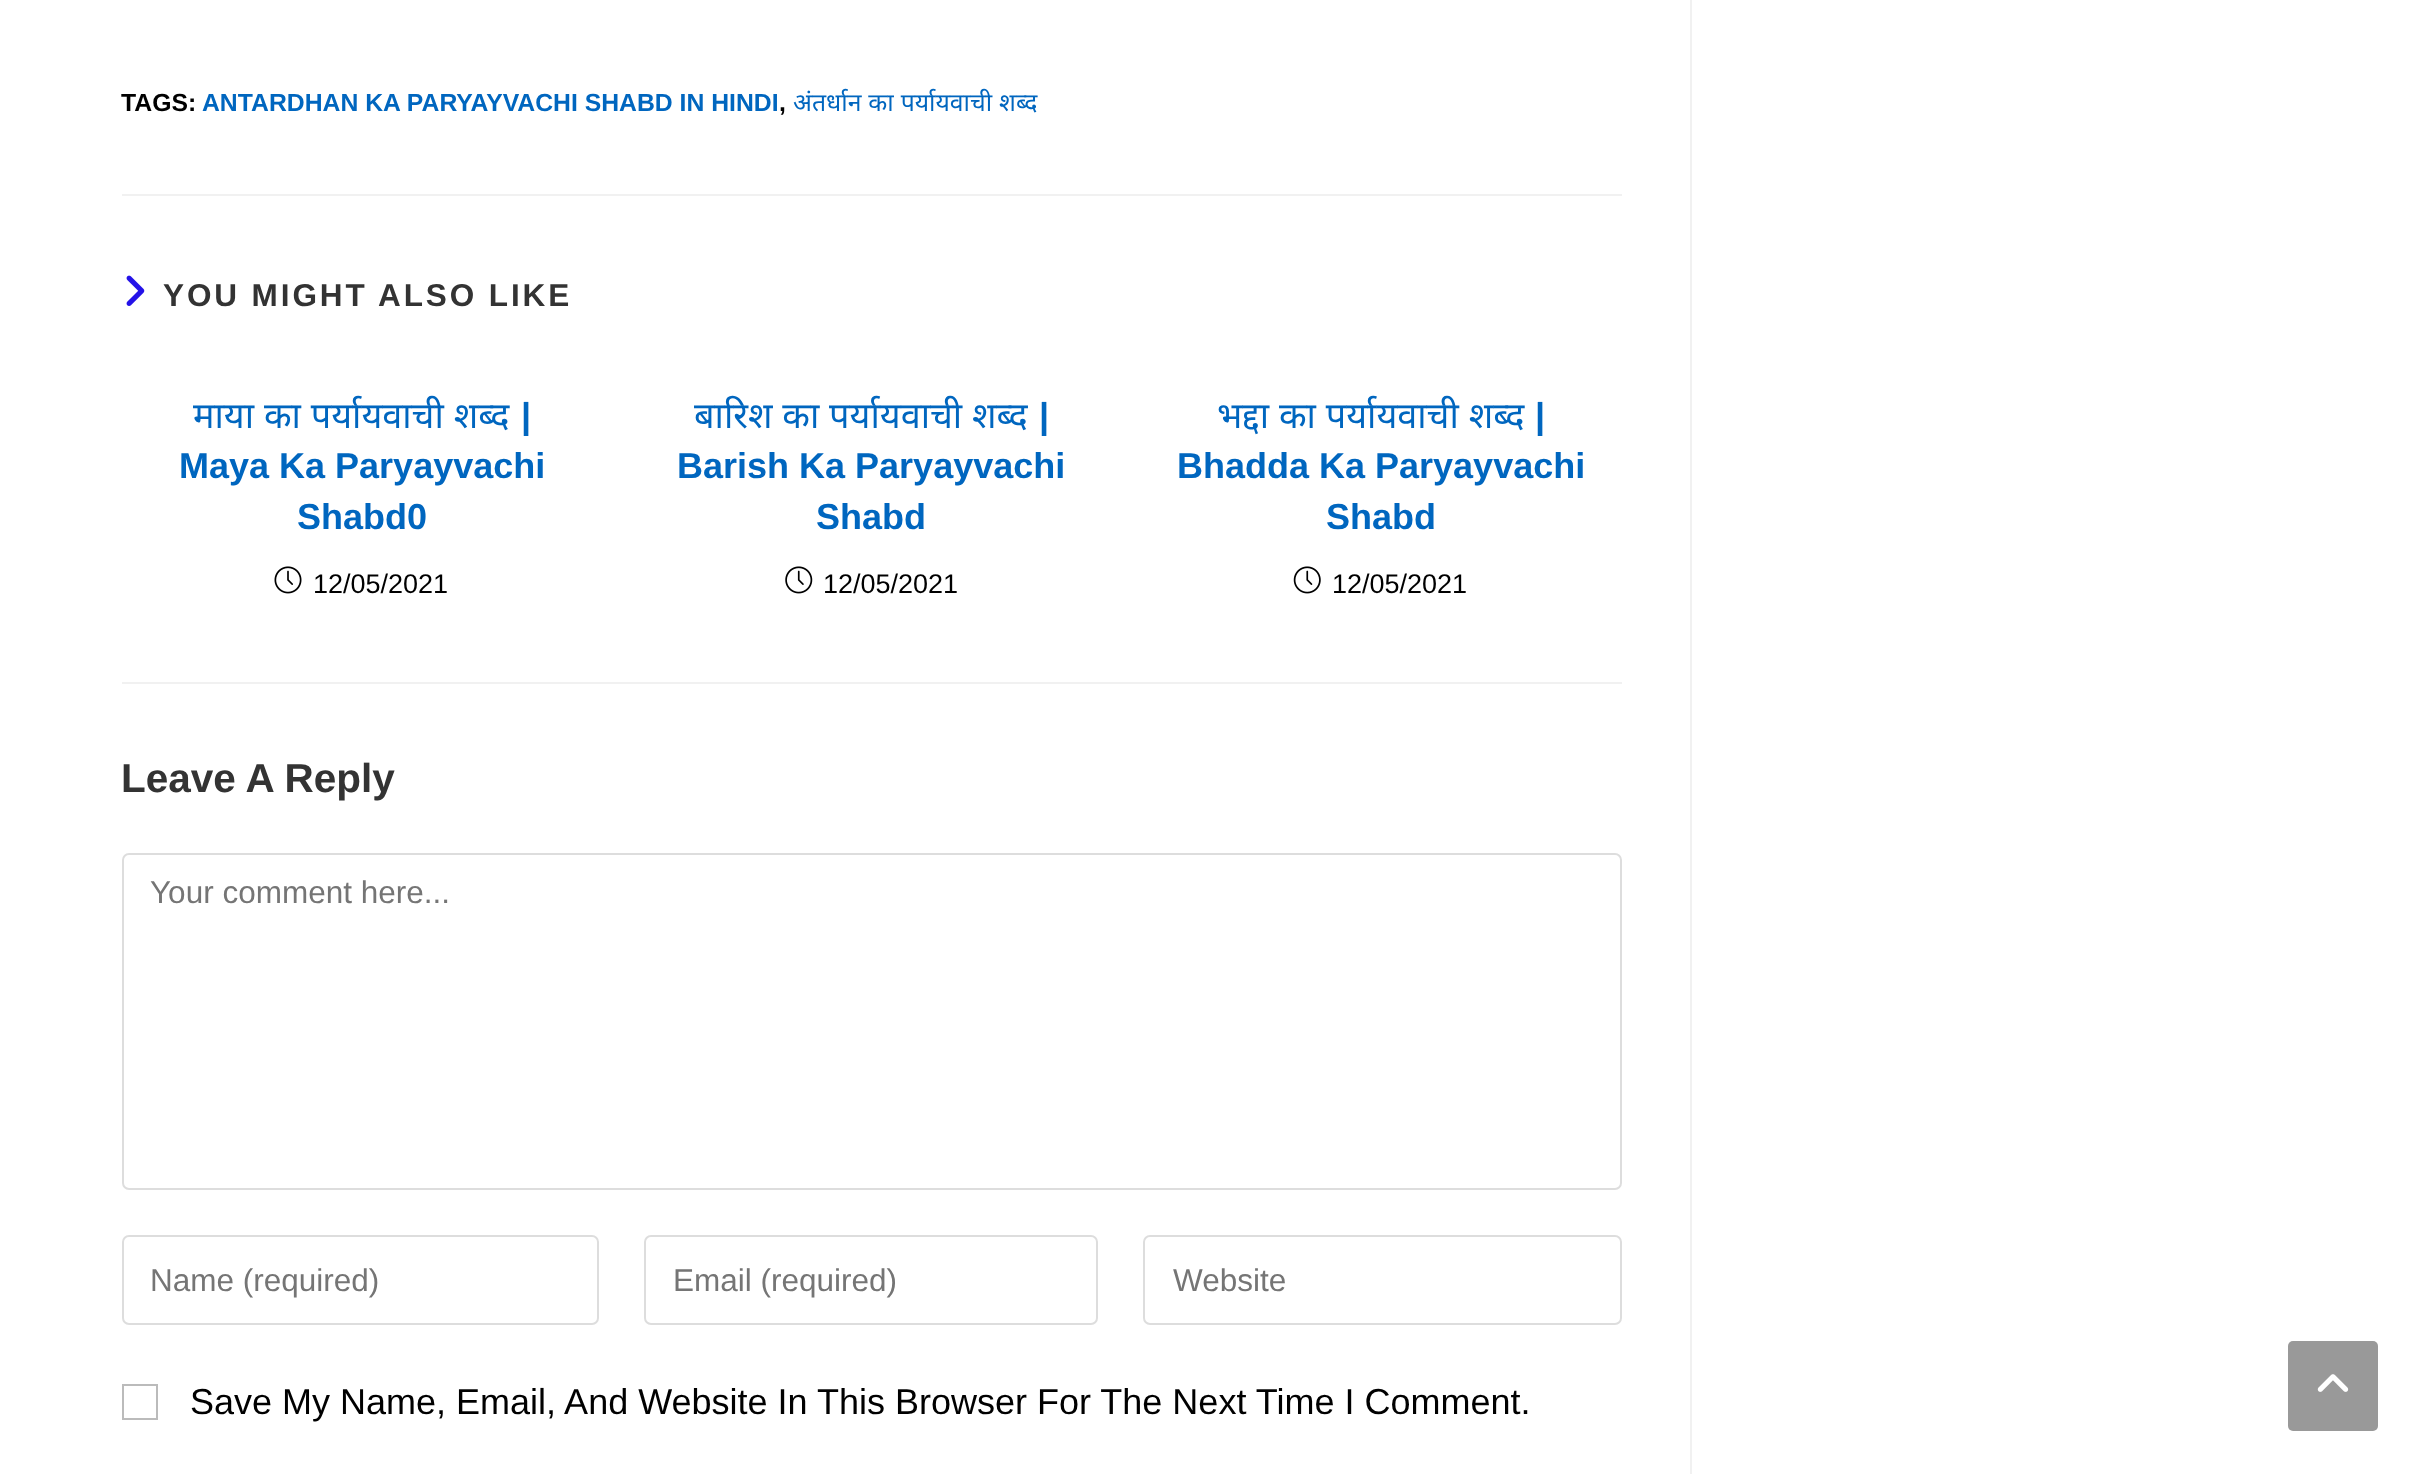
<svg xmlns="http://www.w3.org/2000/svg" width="2422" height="1474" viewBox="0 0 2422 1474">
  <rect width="100%" height="100%" fill="#ffffff"/>
  <rect x="1690" y="0" width="2" height="1474" fill="#f1f1f1"/>
  <text x="121" y="111" font-family="Liberation Sans" font-size="24.75" font-weight="bold" fill="#000000">TAGS:</text>
  <text x="202" y="111" font-family="Liberation Sans" font-size="24.75" font-weight="bold" fill="#0066bf">ANTARDHAN KA PARYAYVACHI SHABD IN HINDI</text>
  <text x="779" y="111" font-family="Liberation Sans" font-size="24.75" font-weight="bold" fill="#000000">,</text>
  <text x="793" y="111" word-spacing="0.5" font-family="Noto Sans" font-size="24.75" fill="#0066bf">अंतर्धान का पर्यायवाची शब्द</text>
  <rect x="122" y="194" width="1500" height="2" fill="#f1f1f1"/>
  <image x="126" y="275" width="19" height="31" href="img1.png"/>
  <text x="163" y="306" font-family="Liberation Sans" font-size="31.5" font-weight="bold" letter-spacing="2.9" fill="#333333">YOU MIGHT ALSO LIKE</text>
  <text x="193" y="428" word-spacing="0.5" font-family="Noto Sans" font-size="36" fill="#0066bf">माया का पर्यायवाची शब्द</text>
  <text x="521" y="428" font-family="Liberation Sans" font-size="36" font-weight="bold" fill="#0066bf">|</text>
  <text x="179" y="478" font-family="Liberation Sans" font-size="36" font-weight="bold" fill="#0066bf">Maya Ka Paryayvachi</text>
  <text x="297" y="529" font-family="Liberation Sans" font-size="36" font-weight="bold" fill="#0066bf">Shabd0</text>
  <image x="274" y="566" width="28" height="28" href="img2.png"/>
  <text x="313" y="593" font-family="Liberation Sans" font-size="27" fill="#000000">12/05/2021</text>
  <text x="694" y="428" word-spacing="0.5" font-family="Noto Sans" font-size="36" fill="#0066bf">बारिश का पर्यायवाची शब्द</text>
  <text x="1039" y="428" font-family="Liberation Sans" font-size="36" font-weight="bold" fill="#0066bf">|</text>
  <text x="677" y="478" font-family="Liberation Sans" font-size="36" font-weight="bold" fill="#0066bf">Barish Ka Paryayvachi</text>
  <text x="816" y="529" font-family="Liberation Sans" font-size="36" font-weight="bold" fill="#0066bf">Shabd</text>
  <image x="785" y="566" width="28" height="28" href="img3.png"/>
  <text x="823" y="593" font-family="Liberation Sans" font-size="27" fill="#000000">12/05/2021</text>
  <text x="1217" y="428" word-spacing="0.5" font-family="Noto Sans" font-size="36" fill="#0066bf">भद्दा का पर्यायवाची शब्द</text>
  <text x="1535" y="428" font-family="Liberation Sans" font-size="36" font-weight="bold" fill="#0066bf">|</text>
  <text x="1177" y="478" font-family="Liberation Sans" font-size="36" font-weight="bold" fill="#0066bf">Bhadda Ka Paryayvachi</text>
  <text x="1326" y="529" font-family="Liberation Sans" font-size="36" font-weight="bold" fill="#0066bf">Shabd</text>
  <image x="1293" y="566" width="28" height="28" href="img4.png"/>
  <text x="1332" y="593" font-family="Liberation Sans" font-size="27" fill="#000000">12/05/2021</text>
  <rect x="122" y="682" width="1500" height="2" fill="#f1f1f1"/>
  <text x="121" y="792" font-family="Liberation Sans" font-size="40.5" font-weight="bold" fill="#333333">Leave A Reply</text>
  <rect x="123" y="854" width="1498" height="335" rx="6" fill="none" stroke="#dddddd" stroke-width="2"/>
  <text x="150" y="903" font-family="Liberation Sans" font-size="31.5" fill="#757575">Your comment here...</text>
  <rect x="123" y="1236" width="475" height="88" rx="6" fill="none" stroke="#dddddd" stroke-width="2"/>
  <text x="150" y="1291" font-family="Liberation Sans" font-size="31.5" fill="#757575">Name (required)</text>
  <rect x="645" y="1236" width="452" height="88" rx="6" fill="none" stroke="#dddddd" stroke-width="2"/>
  <text x="673" y="1291" font-family="Liberation Sans" font-size="31.5" fill="#757575">Email (required)</text>
  <rect x="1144" y="1236" width="477" height="88" rx="6" fill="none" stroke="#dddddd" stroke-width="2"/>
  <text x="1173" y="1291" font-family="Liberation Sans" font-size="31.5" fill="#757575">Website</text>
  <rect x="123" y="1385" width="34" height="34" fill="none" stroke="#bbbbbb" stroke-width="2"/>
  <text x="190" y="1414" font-family="Liberation Sans" font-size="36" fill="#000000">Save My Name, Email, And Website In This Browser For The Next Time I Comment.</text>
  <rect x="2288" y="1341" width="90" height="90" rx="5" fill="#999999"/>
  <image x="2317" y="1374" width="32" height="18" href="img5.png"/>
</svg>
